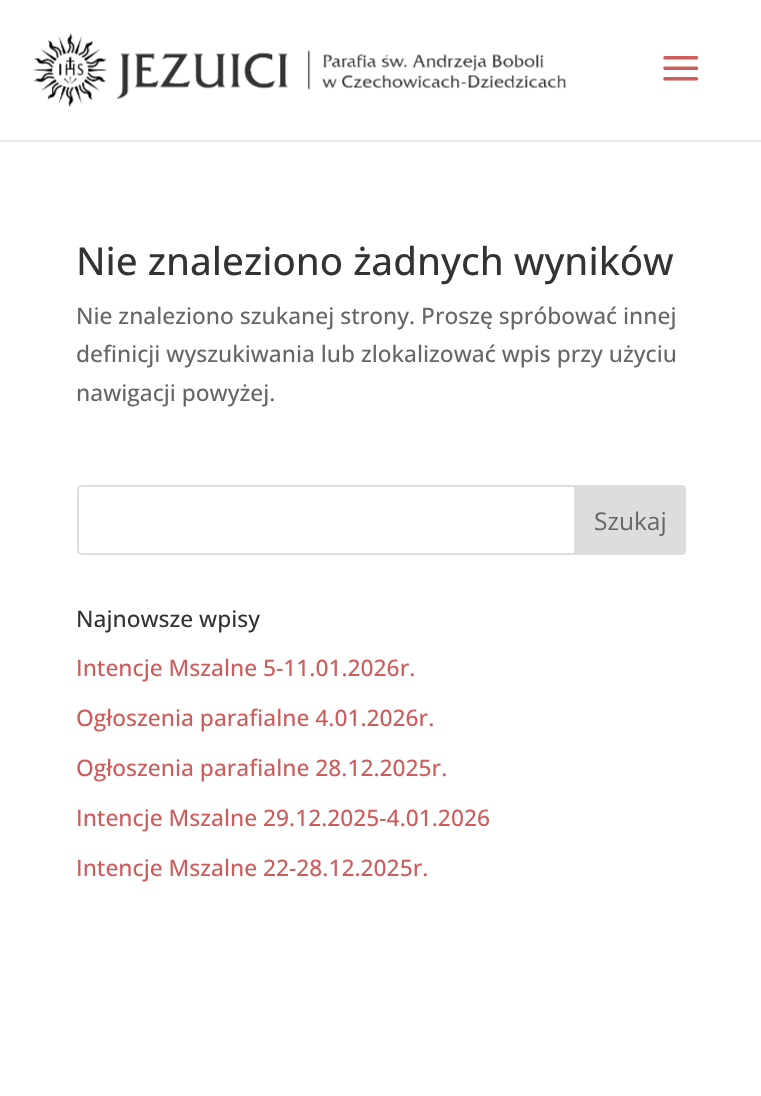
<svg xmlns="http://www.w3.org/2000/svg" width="761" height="1096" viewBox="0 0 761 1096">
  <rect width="100%" height="100%" fill="#ffffff"/>
  <rect x="0" y="140" width="761" height="2" fill="#e6e6e6"/>
  <image x="33" y="33" width="534" height="74" href="img1.png"/>
  <image x="663" y="56" width="36" height="25" href="img2.png"/>
  <text x="76" y="275" font-family="Open Sans" font-size="38.5" font-weight="500" fill="#333333">Nie znaleziono żadnych wyników</text>
  <text x="76" y="324" font-family="Open Sans" font-size="22.75" font-weight="500" fill="#666666">Nie znaleziono szukanej strony. Proszę spróbować innej</text>
  <text x="76" y="362" font-family="Open Sans" font-size="22.75" font-weight="500" fill="#666666">definicji wyszukiwania lub zlokalizować wpis przy użyciu</text>
  <text x="76" y="401" font-family="Open Sans" font-size="22.75" font-weight="500" fill="#666666">nawigacji powyżej.</text>
  <rect x="78" y="486" width="607" height="68" rx="4" fill="none" stroke="#dddddd" stroke-width="2"/>
  <path d="M575 486H681C683 486 685 488 685 490V550C685 552 683 554 681 554H575Z" fill="#dddddd" stroke="#dddddd" stroke-width="2"/>
  <text x="594" y="530" font-family="Open Sans" font-size="24.5" fill="#666666">Szukaj</text>
  <text x="76" y="627" font-family="Open Sans" font-size="22.75" font-weight="500" fill="#333333">Najnowsze wpisy</text>
  <text x="76" y="676" font-family="Open Sans" font-size="22.75" font-weight="500" fill="#cd5c5c">Intencje Mszalne 5-11.01.2026r.</text>
  <text x="76" y="726" font-family="Open Sans" font-size="22.75" font-weight="500" fill="#cd5c5c">Ogłoszenia parafialne 4.01.2026r.</text>
  <text x="76" y="776" font-family="Open Sans" font-size="22.75" font-weight="500" fill="#cd5c5c">Ogłoszenia parafialne 28.12.2025r.</text>
  <text x="76" y="826" font-family="Open Sans" font-size="22.75" font-weight="500" fill="#cd5c5c">Intencje Mszalne 29.12.2025-4.01.2026</text>
  <text x="76" y="876" font-family="Open Sans" font-size="22.75" font-weight="500" fill="#cd5c5c">Intencje Mszalne 22-28.12.2025r.</text>
</svg>
